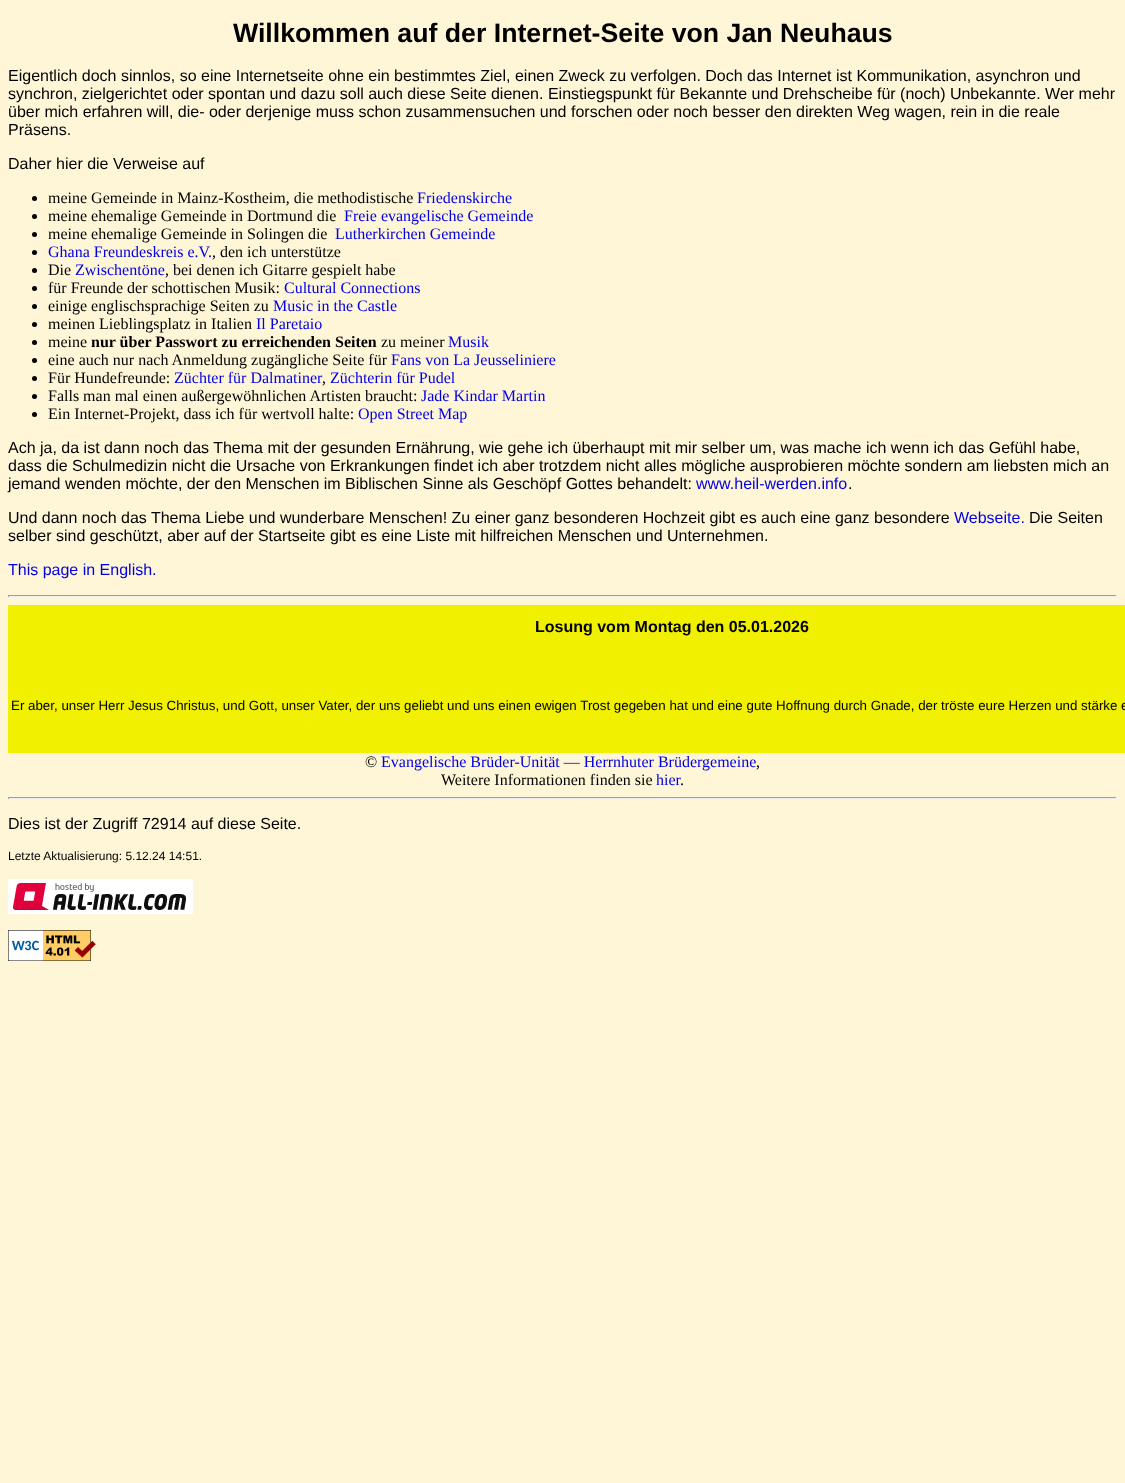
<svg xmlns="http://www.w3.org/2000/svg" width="1125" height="1483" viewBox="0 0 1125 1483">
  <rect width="100%" height="100%" fill="#fff5d7"/>
  <text x="233" y="42" font-family="Liberation Sans" font-size="26.7" font-weight="bold" fill="#000000">Willkommen auf der Internet-Seite von Jan Neuhaus</text>
  <text x="8" y="81" font-family="Liberation Sans" font-size="16" fill="#000000">Eigentlich doch sinnlos, so eine Internetseite ohne ein bestimmtes Ziel, einen Zweck zu verfolgen. Doch das Internet ist Kommunikation, asynchron und</text>
  <text x="8" y="99" font-family="Liberation Sans" font-size="16" fill="#000000">synchron, zielgerichtet oder spontan und dazu soll auch diese Seite dienen. Einstiegspunkt für Bekannte und Drehscheibe für (noch) Unbekannte. Wer mehr</text>
  <text x="8" y="117" font-family="Liberation Sans" font-size="16" fill="#000000">über mich erfahren will, die- oder derjenige muss schon zusammensuchen und forschen oder noch besser den direkten Weg wagen, rein in die reale</text>
  <text x="8" y="135" font-family="Liberation Sans" font-size="16" fill="#000000">Präsens.</text>
  <text x="8" y="169" font-family="Liberation Sans" font-size="16" fill="#000000">Daher hier die Verweise auf</text>
  <circle cx="34.5" cy="198.5" r="2.5" fill="#000000"/>
  <text x="48" y="203" font-family="Liberation Serif" font-size="16" fill="#000000">meine Gemeinde in Mainz-Kostheim, die methodistische</text>
  <text x="417" y="203" font-family="Liberation Serif" font-size="16" fill="#0000e0">Friedenskirche</text>
  <circle cx="34.5" cy="216.5" r="2.5" fill="#000000"/>
  <text x="48" y="221" font-family="Liberation Serif" font-size="16" fill="#000000">meine ehemalige Gemeinde in Dortmund die</text>
  <text x="344" y="221" font-family="Liberation Serif" font-size="16" fill="#0000e0">Freie evangelische Gemeinde</text>
  <circle cx="34.5" cy="234.5" r="2.5" fill="#000000"/>
  <text x="48" y="239" font-family="Liberation Serif" font-size="16" fill="#000000">meine ehemalige Gemeinde in Solingen die</text>
  <text x="335" y="239" font-family="Liberation Serif" font-size="16" fill="#0000e0">Lutherkirchen Gemeinde</text>
  <circle cx="34.5" cy="252.5" r="2.5" fill="#000000"/>
  <text x="48" y="257" font-family="Liberation Serif" font-size="16" fill="#0000e0">Ghana Freundeskreis e.V.</text>
  <text x="212" y="257" font-family="Liberation Serif" font-size="16" fill="#000000">, den ich unterstütze</text>
  <circle cx="34.5" cy="270.5" r="2.5" fill="#000000"/>
  <text x="48" y="275" font-family="Liberation Serif" font-size="16" fill="#000000">Die</text>
  <text x="75" y="275" font-family="Liberation Serif" font-size="16" fill="#0000e0">Zwischentöne</text>
  <text x="165" y="275" font-family="Liberation Serif" font-size="16" fill="#000000">, bei denen ich Gitarre gespielt habe</text>
  <circle cx="34.5" cy="288.5" r="2.5" fill="#000000"/>
  <text x="48" y="293" font-family="Liberation Serif" font-size="16" fill="#000000">für Freunde der schottischen Musik:</text>
  <text x="284" y="293" font-family="Liberation Serif" font-size="16" fill="#0000e0">Cultural Connections</text>
  <circle cx="34.5" cy="306.5" r="2.5" fill="#000000"/>
  <text x="48" y="311" font-family="Liberation Serif" font-size="16" fill="#000000">einige englischsprachige Seiten zu</text>
  <text x="273" y="311" font-family="Liberation Serif" font-size="16" fill="#0000e0">Music in the Castle</text>
  <circle cx="34.5" cy="324.5" r="2.5" fill="#000000"/>
  <text x="48" y="329" font-family="Liberation Serif" font-size="16" fill="#000000">meinen Lieblingsplatz in Italien</text>
  <text x="256" y="329" font-family="Liberation Serif" font-size="16" fill="#0000e0">Il Paretaio</text>
  <circle cx="34.5" cy="342.5" r="2.5" fill="#000000"/>
  <text x="48" y="347" font-family="Liberation Serif" font-size="16" fill="#000000">meine</text>
  <text x="91" y="347" font-family="Liberation Serif" font-size="16" font-weight="bold" fill="#000000">nur über Passwort zu erreichenden Seiten</text>
  <text x="381" y="347" font-family="Liberation Serif" font-size="16" fill="#000000">zu meiner</text>
  <text x="448" y="347" font-family="Liberation Serif" font-size="16" fill="#0000e0">Musik</text>
  <circle cx="34.5" cy="360.5" r="2.5" fill="#000000"/>
  <text x="48" y="365" font-family="Liberation Serif" font-size="16" fill="#000000">eine auch nur nach Anmeldung zugängliche Seite für</text>
  <text x="391" y="365" font-family="Liberation Serif" font-size="16" fill="#0000e0">Fans von La Jeusseliniere</text>
  <circle cx="34.5" cy="378.5" r="2.5" fill="#000000"/>
  <text x="48" y="383" font-family="Liberation Serif" font-size="16" fill="#000000">Für Hundefreunde:</text>
  <text x="174" y="383" font-family="Liberation Serif" font-size="16" fill="#0000e0">Züchter für Dalmatiner</text>
  <text x="330" y="383" font-family="Liberation Serif" font-size="16" fill="#0000e0">Züchterin für Pudel</text>
  <text x="322" y="383" font-family="Liberation Serif" font-size="16" fill="#000000">,</text>
  <circle cx="34.5" cy="396.5" r="2.5" fill="#000000"/>
  <text x="48" y="401" font-family="Liberation Serif" font-size="16" fill="#000000">Falls man mal einen außergewöhnlichen Artisten braucht:</text>
  <text x="421" y="401" font-family="Liberation Serif" font-size="16" fill="#0000e0">Jade Kindar Martin</text>
  <circle cx="34.5" cy="414.5" r="2.5" fill="#000000"/>
  <text x="48" y="419" font-family="Liberation Serif" font-size="16" fill="#000000">Ein Internet-Projekt, dass ich für wertvoll halte:</text>
  <text x="358" y="419" font-family="Liberation Serif" font-size="16" fill="#0000e0">Open Street Map</text>
  <text x="8" y="453" font-family="Liberation Sans" font-size="16" fill="#000000">Ach ja, da ist dann noch das Thema mit der gesunden Ernährung, wie gehe ich überhaupt mit mir selber um, was mache ich wenn ich das Gefühl habe,</text>
  <text x="8" y="471" font-family="Liberation Sans" font-size="16" fill="#000000">dass die Schulmedizin nicht die Ursache von Erkrankungen findet ich aber trotzdem nicht alles mögliche ausprobieren möchte sondern am liebsten mich an</text>
  <text x="8" y="489" font-family="Liberation Sans" font-size="16" fill="#000000">jemand wenden möchte, der den Menschen im Biblischen Sinne als Geschöpf Gottes behandelt:</text>
  <text x="696" y="489" font-family="Liberation Sans" font-size="16" fill="#0000e0">www.heil-werden.info</text>
  <text x="848" y="489" font-family="Liberation Sans" font-size="16" fill="#000000">.</text>
  <text x="8" y="523" font-family="Liberation Sans" font-size="16" fill="#000000">Und dann noch das Thema Liebe und wunderbare Menschen! Zu einer ganz besonderen Hochzeit gibt es auch eine ganz besondere</text>
  <text x="954" y="523" font-family="Liberation Sans" font-size="16" fill="#0000e0">Webseite.</text>
  <text x="1029" y="523" font-family="Liberation Sans" font-size="16" fill="#000000">Die Seiten</text>
  <text x="8" y="541" font-family="Liberation Sans" font-size="16" fill="#000000">selber sind geschützt, aber auf der Startseite gibt es eine Liste mit hilfreichen Menschen und Unternehmen.</text>
  <text x="8" y="575" font-family="Liberation Sans" font-size="16" fill="#0000e0">This page in English.</text>
  <rect x="8" y="595" width="1109" height="1" fill="#9f9f9f"/>
  <rect x="1116" y="595" width="1" height="2" fill="#eeeeee"/>
  <rect x="8" y="596" width="1109" height="1" fill="#eeeeee"/>
  <rect x="8" y="595" width="1" height="2" fill="#9f9f9f"/>
  <rect x="8" y="605" width="1117" height="148" fill="#f0f000"/>
  <text x="535" y="632" font-family="Liberation Sans" font-size="16" font-weight="bold" fill="#000000">Losung vom Montag den 05.01.2026</text>
  <text x="11" y="710" font-family="Liberation Sans" font-size="13.33" fill="#000000">Er aber, unser Herr Jesus Christus, und Gott, unser Vater, der uns geliebt und uns einen ewigen Trost gegeben hat und eine gute Hoffnung durch Gnade, der tröste eure Herzen und stärke e</text>
  <text x="365" y="767" font-family="Liberation Serif" font-size="16" fill="#000000">©</text>
  <text x="381" y="767" font-family="Liberation Serif" font-size="16" fill="#0000e0">Evangelische Brüder-Unität — Herrnhuter Brüdergemeine</text>
  <text x="756" y="767" font-family="Liberation Serif" font-size="16" fill="#000000">,</text>
  <text x="441" y="785" font-family="Liberation Serif" font-size="16" fill="#000000">Weitere Informationen finden sie</text>
  <text x="656" y="785" font-family="Liberation Serif" font-size="16" fill="#0000e0">hier</text>
  <text x="680" y="785" font-family="Liberation Serif" font-size="16" fill="#000000">.</text>
  <rect x="8" y="797" width="1109" height="1" fill="#9f9f9f"/>
  <rect x="1116" y="797" width="1" height="2" fill="#eeeeee"/>
  <rect x="8" y="798" width="1109" height="1" fill="#eeeeee"/>
  <rect x="8" y="797" width="1" height="2" fill="#9f9f9f"/>
  <text x="8" y="829" font-family="Liberation Sans" font-size="16" fill="#000000">Dies ist der Zugriff 72914 auf diese Seite.</text>
  <text x="8" y="860" font-family="Liberation Sans" font-size="12" fill="#000000">Letzte Aktualisierung: 5.12.24 14:51.</text>
  <image x="8" y="879" width="185" height="35" href="img1.png"/>
  <image x="8" y="930" width="88" height="31" href="img2.png"/>
</svg>
